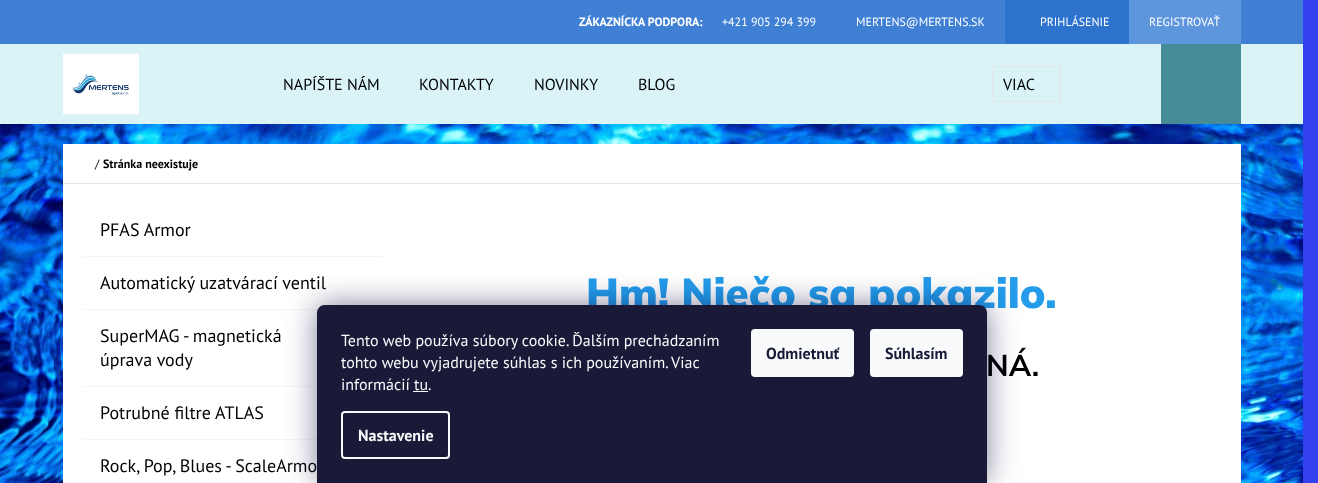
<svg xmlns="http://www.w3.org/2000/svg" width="1318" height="483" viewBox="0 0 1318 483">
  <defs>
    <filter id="blur1" x="-50%" y="-200%" width="200%" height="500%"><feGaussianBlur stdDeviation="15"/></filter>
  </defs>
  <rect width="100%" height="100%" fill="#3441ef"/>
  <image x="0" y="124" width="1303" height="359" href="img1.png"/>
  <rect x="0" y="0" width="1303" height="44" fill="#3f80d5"/>
  <text x="579" y="26" font-family="PT Sans" font-size="12" font-weight="bold" fill="#ffffff">ZÁKAZNÍCKA PODPORA:</text>
  <text x="722" y="26" font-family="PT Sans" font-size="12" fill="#ffffff">+421 905 294 399</text>
  <text x="856" y="26" font-family="PT Sans" font-size="12" fill="#ffffff">MERTENS@MERTENS.SK</text>
  <rect x="1005" y="0" width="124" height="44" fill="#2d72cd"/>
  <text x="1040" y="26" font-family="PT Sans" font-size="12" fill="#ffffff">PRIHLÁSENIE</text>
  <rect x="1129" y="0" width="112" height="44" fill="#5e96de"/>
  <text x="1149" y="26" font-family="PT Sans" font-size="12" fill="#ffffff">REGISTROVAŤ</text>
  <rect x="0" y="44" width="1303" height="80" fill="#d9f3f7"/>
  <image x="63" y="54" width="76" height="60" href="img2.png"/>
  <text x="283" y="90" font-family="PT Sans" font-size="16" fill="#000000">NAPÍŠTE NÁM</text>
  <text x="419" y="90" font-family="PT Sans" font-size="16" fill="#000000">KONTAKTY</text>
  <text x="534" y="90" font-family="PT Sans" font-size="16" fill="#000000">NOVINKY</text>
  <text x="638" y="90" font-family="PT Sans" font-size="16" fill="#000000">BLOG</text>
  <rect x="992.5" y="66.5" width="68" height="35" fill="none" stroke="#e6e6e6"/>
  <text x="1003" y="90" font-family="PT Sans" font-size="16" fill="#000000">VIAC</text>
  <rect x="1161" y="44" width="80" height="80" fill="#468c98"/>
  <rect x="63" y="144" width="1178" height="339" fill="#ffffff"/>
  <rect x="63" y="183" width="1178" height="1" fill="#e6e6e6"/>
  <text x="95" y="168" font-family="PT Sans" font-size="12" fill="#000000">/</text>
  <text x="103" y="168" font-family="PT Sans" font-size="12" font-weight="bold" fill="#000000">Stránka neexistuje</text>
  <rect x="83" y="256" width="300" height="1" fill="#f5f5f5"/>
  <text x="100" y="236" font-family="PT Sans" font-size="18" fill="#000000">PFAS Armor</text>
  <rect x="83" y="309" width="236" height="1" fill="#f5f5f5"/>
  <text x="100" y="289" font-family="PT Sans" font-size="18" fill="#000000">Automatický uzatvárací ventil</text>
  <rect x="83" y="386" width="234" height="1" fill="#f5f5f5"/>
  <text x="100" y="342" font-family="PT Sans" font-size="18" fill="#000000">SuperMAG - magnetická</text>
  <text x="100" y="366" font-family="PT Sans" font-size="18" fill="#000000">úprava vody</text>
  <rect x="83" y="439" width="234" height="1" fill="#f5f5f5"/>
  <text x="100" y="419" font-family="PT Sans" font-size="18" fill="#000000">Potrubné filtre ATLAS</text>
  <text x="100" y="472" font-family="PT Sans" font-size="18" fill="#000000">Rock, Pop, Blues - ScaleArmo</text>
  <text x="586" y="308" font-family="Mulish" font-size="42" font-weight="900" fill="#239ceb">Hm! Niečo sa pokazilo.</text>
  <text x="986" y="376" font-family="Mulish" font-size="30" font-weight="bold" fill="#000000">NÁ.</text>
  <rect x="317" y="305" width="670" height="178" rx="8" fill="#1b1939" fill-opacity="0.5" filter="url(#blur1)"/>
  <path d="M325 305H979C983.5 305 987 308.5 987 313V483H317V313C317 308.5 320.5 305 325 305Z" fill="#1a1937"/>
  <text x="341" y="346" font-family="PT Sans" font-size="16" fill="#f8fafb">Tento web používa súbory cookie. Ďalším prechádzaním</text>
  <text x="341" y="368" font-family="PT Sans" font-size="16" fill="#f8fafb">tohto webu vyjadrujete súhlas s ich používaním. Viac</text>
  <text x="341" y="390" font-family="PT Sans" font-size="16" fill="#f8fafb">informácií tu.</text>
  <rect x="413" y="391" width="15" height="1" fill="#f8fafb"/>
  <rect x="342" y="412" width="107" height="46" rx="3" fill="none" stroke="#f8fafb" stroke-width="2"/>
  <text x="358" y="441" font-family="PT Sans" font-size="16" font-weight="bold" fill="#f8fafb">Nastavenie</text>
  <rect x="751" y="329" width="103" height="48" rx="4" fill="#f8fafb"/>
  <text x="766" y="359" font-family="PT Sans" font-size="16" font-weight="bold" fill="#1a1937">Odmietnuť</text>
  <rect x="870" y="329" width="93" height="48" rx="4" fill="#f8fafb"/>
  <text x="885" y="359" font-family="PT Sans" font-size="16" font-weight="bold" fill="#1a1937">Súhlasím</text>
</svg>
